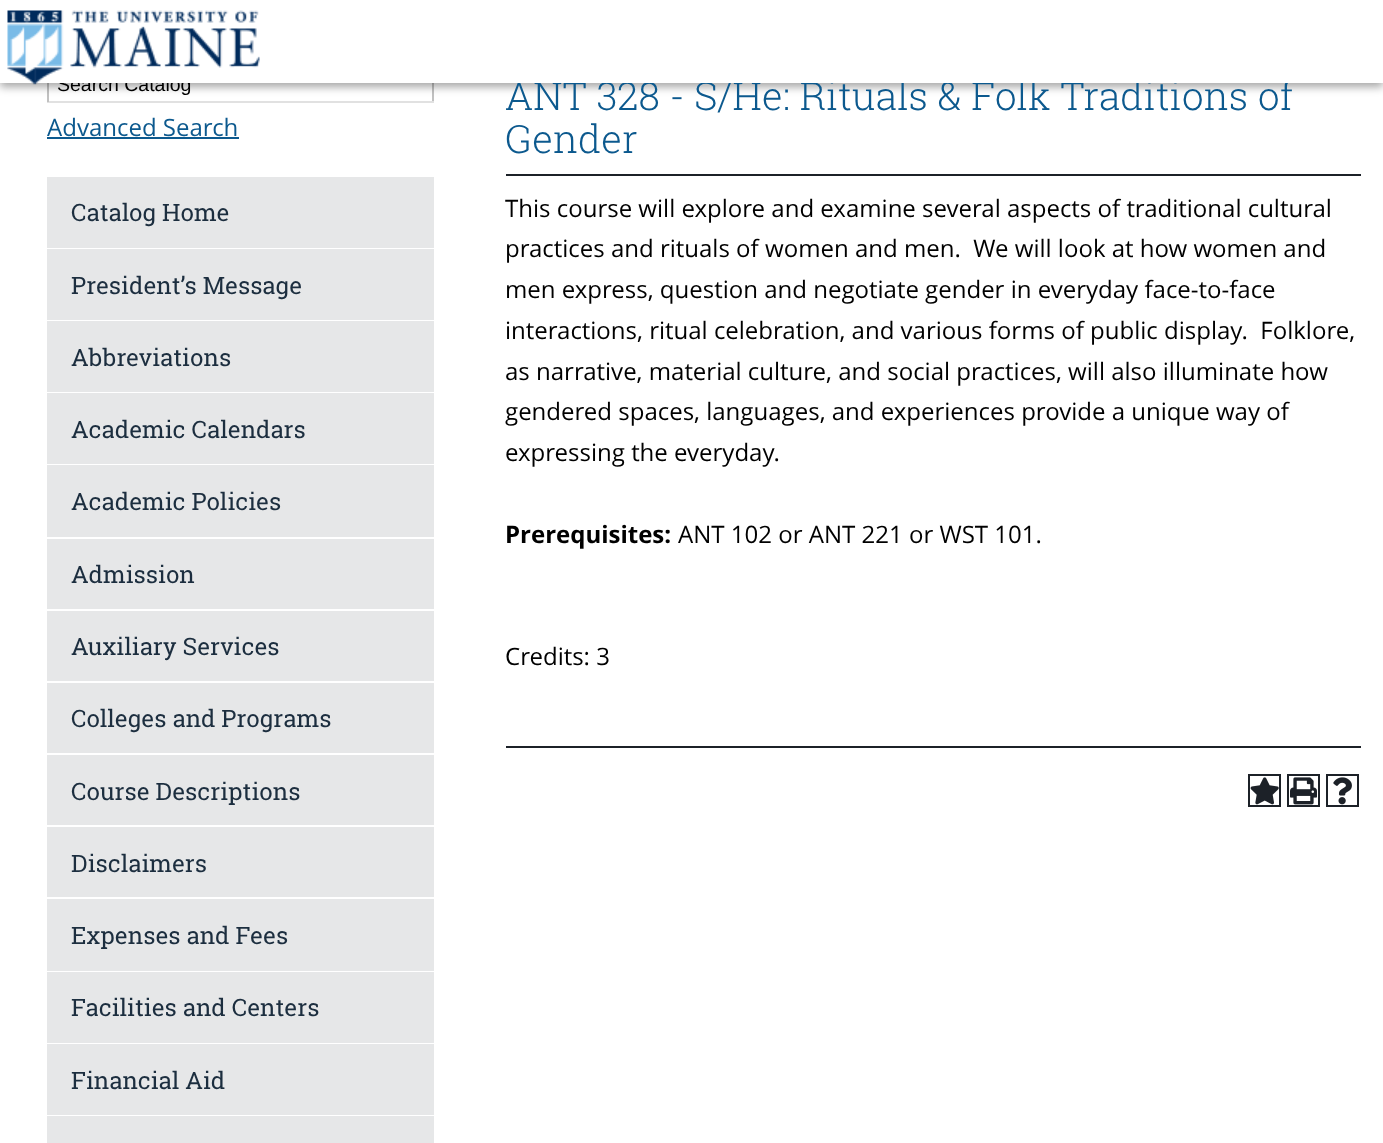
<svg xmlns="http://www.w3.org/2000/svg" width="1383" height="1143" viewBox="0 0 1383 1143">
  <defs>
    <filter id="blur1" x="-50%" y="-200%" width="200%" height="500%"><feGaussianBlur stdDeviation="4"/></filter>
  </defs>
  <rect width="100%" height="100%" fill="#ffffff"/>
  <rect x="432" y="83" width="2" height="19" fill="#c1c1c1"/>
  <rect x="47" y="101" width="387" height="2" fill="#e1e1e1"/>
  <rect x="47" y="83" width="2" height="19" fill="#c1c1c1"/>
  <rect x="0" y="5" width="1383" height="82" fill="#000000" fill-opacity="0.35" filter="url(#blur1)"/>
  <text x="57" y="91" font-family="Liberation Sans" font-size="19.5" fill="#000000">Search Catalog</text>
  <text x="505" y="110" font-family="Roboto Slab" font-size="39" font-weight="300" fill="#0c598e">ANT 328 - S/He: Rituals &amp; Folk Traditions of</text>
  <rect x="0" y="0" width="1383" height="83" fill="#ffffff"/>
  <image x="7" y="10" width="253" height="75" href="img1.png"/>
  <text x="47" y="136" font-family="Open Sans" font-size="24" fill="#0c598e">Advanced Search</text>
  <rect x="47" y="137" width="192" height="2" fill="#0c598e"/>
  <rect x="47" y="177" width="387" height="71" fill="#e6e7e8"/>
  <text x="71" y="221" font-family="Roboto Slab" font-size="24" fill="#1c2e3f">Catalog Home</text>
  <rect x="47" y="249" width="387" height="71" fill="#e6e7e8"/>
  <text x="71" y="294" font-family="Roboto Slab" font-size="24" fill="#1c2e3f">President’s Message</text>
  <rect x="47" y="321" width="387" height="71" fill="#e6e7e8"/>
  <text x="71" y="366" font-family="Roboto Slab" font-size="24" fill="#1c2e3f">Abbreviations</text>
  <rect x="47" y="393" width="387" height="71" fill="#e6e7e8"/>
  <text x="71" y="438" font-family="Roboto Slab" font-size="24" fill="#1c2e3f">Academic Calendars</text>
  <rect x="47" y="465" width="387" height="72" fill="#e6e7e8"/>
  <text x="71" y="510" font-family="Roboto Slab" font-size="24" fill="#1c2e3f">Academic Policies</text>
  <rect x="47" y="539" width="387" height="70" fill="#e6e7e8"/>
  <text x="71" y="583" font-family="Roboto Slab" font-size="24" fill="#1c2e3f">Admission</text>
  <rect x="47" y="611" width="387" height="70" fill="#e6e7e8"/>
  <text x="71" y="655" font-family="Roboto Slab" font-size="24" fill="#1c2e3f">Auxiliary Services</text>
  <rect x="47" y="683" width="387" height="70" fill="#e6e7e8"/>
  <text x="71" y="727" font-family="Roboto Slab" font-size="24" fill="#1c2e3f">Colleges and Programs</text>
  <rect x="47" y="755" width="387" height="70" fill="#e6e7e8"/>
  <text x="71" y="800" font-family="Roboto Slab" font-size="24" fill="#1c2e3f">Course Descriptions</text>
  <rect x="47" y="827" width="387" height="70" fill="#e6e7e8"/>
  <text x="71" y="872" font-family="Roboto Slab" font-size="24" fill="#1c2e3f">Disclaimers</text>
  <rect x="47" y="899" width="387" height="72" fill="#e6e7e8"/>
  <text x="71" y="944" font-family="Roboto Slab" font-size="24" fill="#1c2e3f">Expenses and Fees</text>
  <rect x="47" y="972" width="387" height="71" fill="#e6e7e8"/>
  <text x="71" y="1016" font-family="Roboto Slab" font-size="24" fill="#1c2e3f">Facilities and Centers</text>
  <rect x="47" y="1044" width="387" height="71" fill="#e6e7e8"/>
  <text x="71" y="1089" font-family="Roboto Slab" font-size="24" fill="#1c2e3f">Financial Aid</text>
  <rect x="47" y="1116" width="387" height="27" fill="#e6e7e8"/>
  <text x="505" y="153" font-family="Roboto Slab" font-size="39" font-weight="300" fill="#0c598e">Gender</text>
  <rect x="506" y="174" width="855" height="2" fill="#1c2128"/>
  <text x="505" y="217" font-family="Open Sans" font-size="24" fill="#000000">This course will explore and examine several aspects of traditional cultural</text>
  <text x="505" y="257" font-family="Open Sans" font-size="24" fill="#000000" xml:space="preserve">practices and rituals of women and men.  We will look at how women and</text>
  <text x="505" y="298" font-family="Open Sans" font-size="24" fill="#000000">men express, question and negotiate gender in everyday face-to-face</text>
  <text x="505" y="339" font-family="Open Sans" font-size="24" fill="#000000" xml:space="preserve">interactions, ritual celebration, and various forms of public display.  Folklore,</text>
  <text x="505" y="380" font-family="Open Sans" font-size="24" fill="#000000">as narrative, material culture, and social practices, will also illuminate how</text>
  <text x="505" y="420" font-family="Open Sans" font-size="24" fill="#000000">gendered spaces, languages, and experiences provide a unique way of</text>
  <text x="505" y="461" font-family="Open Sans" font-size="24" fill="#000000">expressing the everyday.</text>
  <text x="505" y="543" font-family="Open Sans" font-size="24" font-weight="bold" fill="#000000">Prerequisites:</text>
  <text x="678" y="543" font-family="Open Sans" font-size="24" fill="#000000">ANT 102 or ANT 221 or WST 101.</text>
  <text x="505" y="665" font-family="Open Sans" font-size="24" fill="#000000">Credits: 3</text>
  <rect x="506" y="746" width="855" height="2" fill="#1c2128"/>
  <rect x="1249" y="775" width="31" height="31" fill="none" stroke="#1c2128" stroke-width="2"/>
  <image x="1250" y="777" width="29" height="28" href="img2.png"/>
  <rect x="1288" y="775" width="31" height="31" fill="none" stroke="#1c2128" stroke-width="2"/>
  <image x="1290" y="777" width="27" height="28" href="img3.png"/>
  <rect x="1327" y="775" width="31" height="31" fill="none" stroke="#1c2128" stroke-width="2"/>
  <image x="1333" y="777" width="19" height="28" href="img4.png"/>
</svg>
